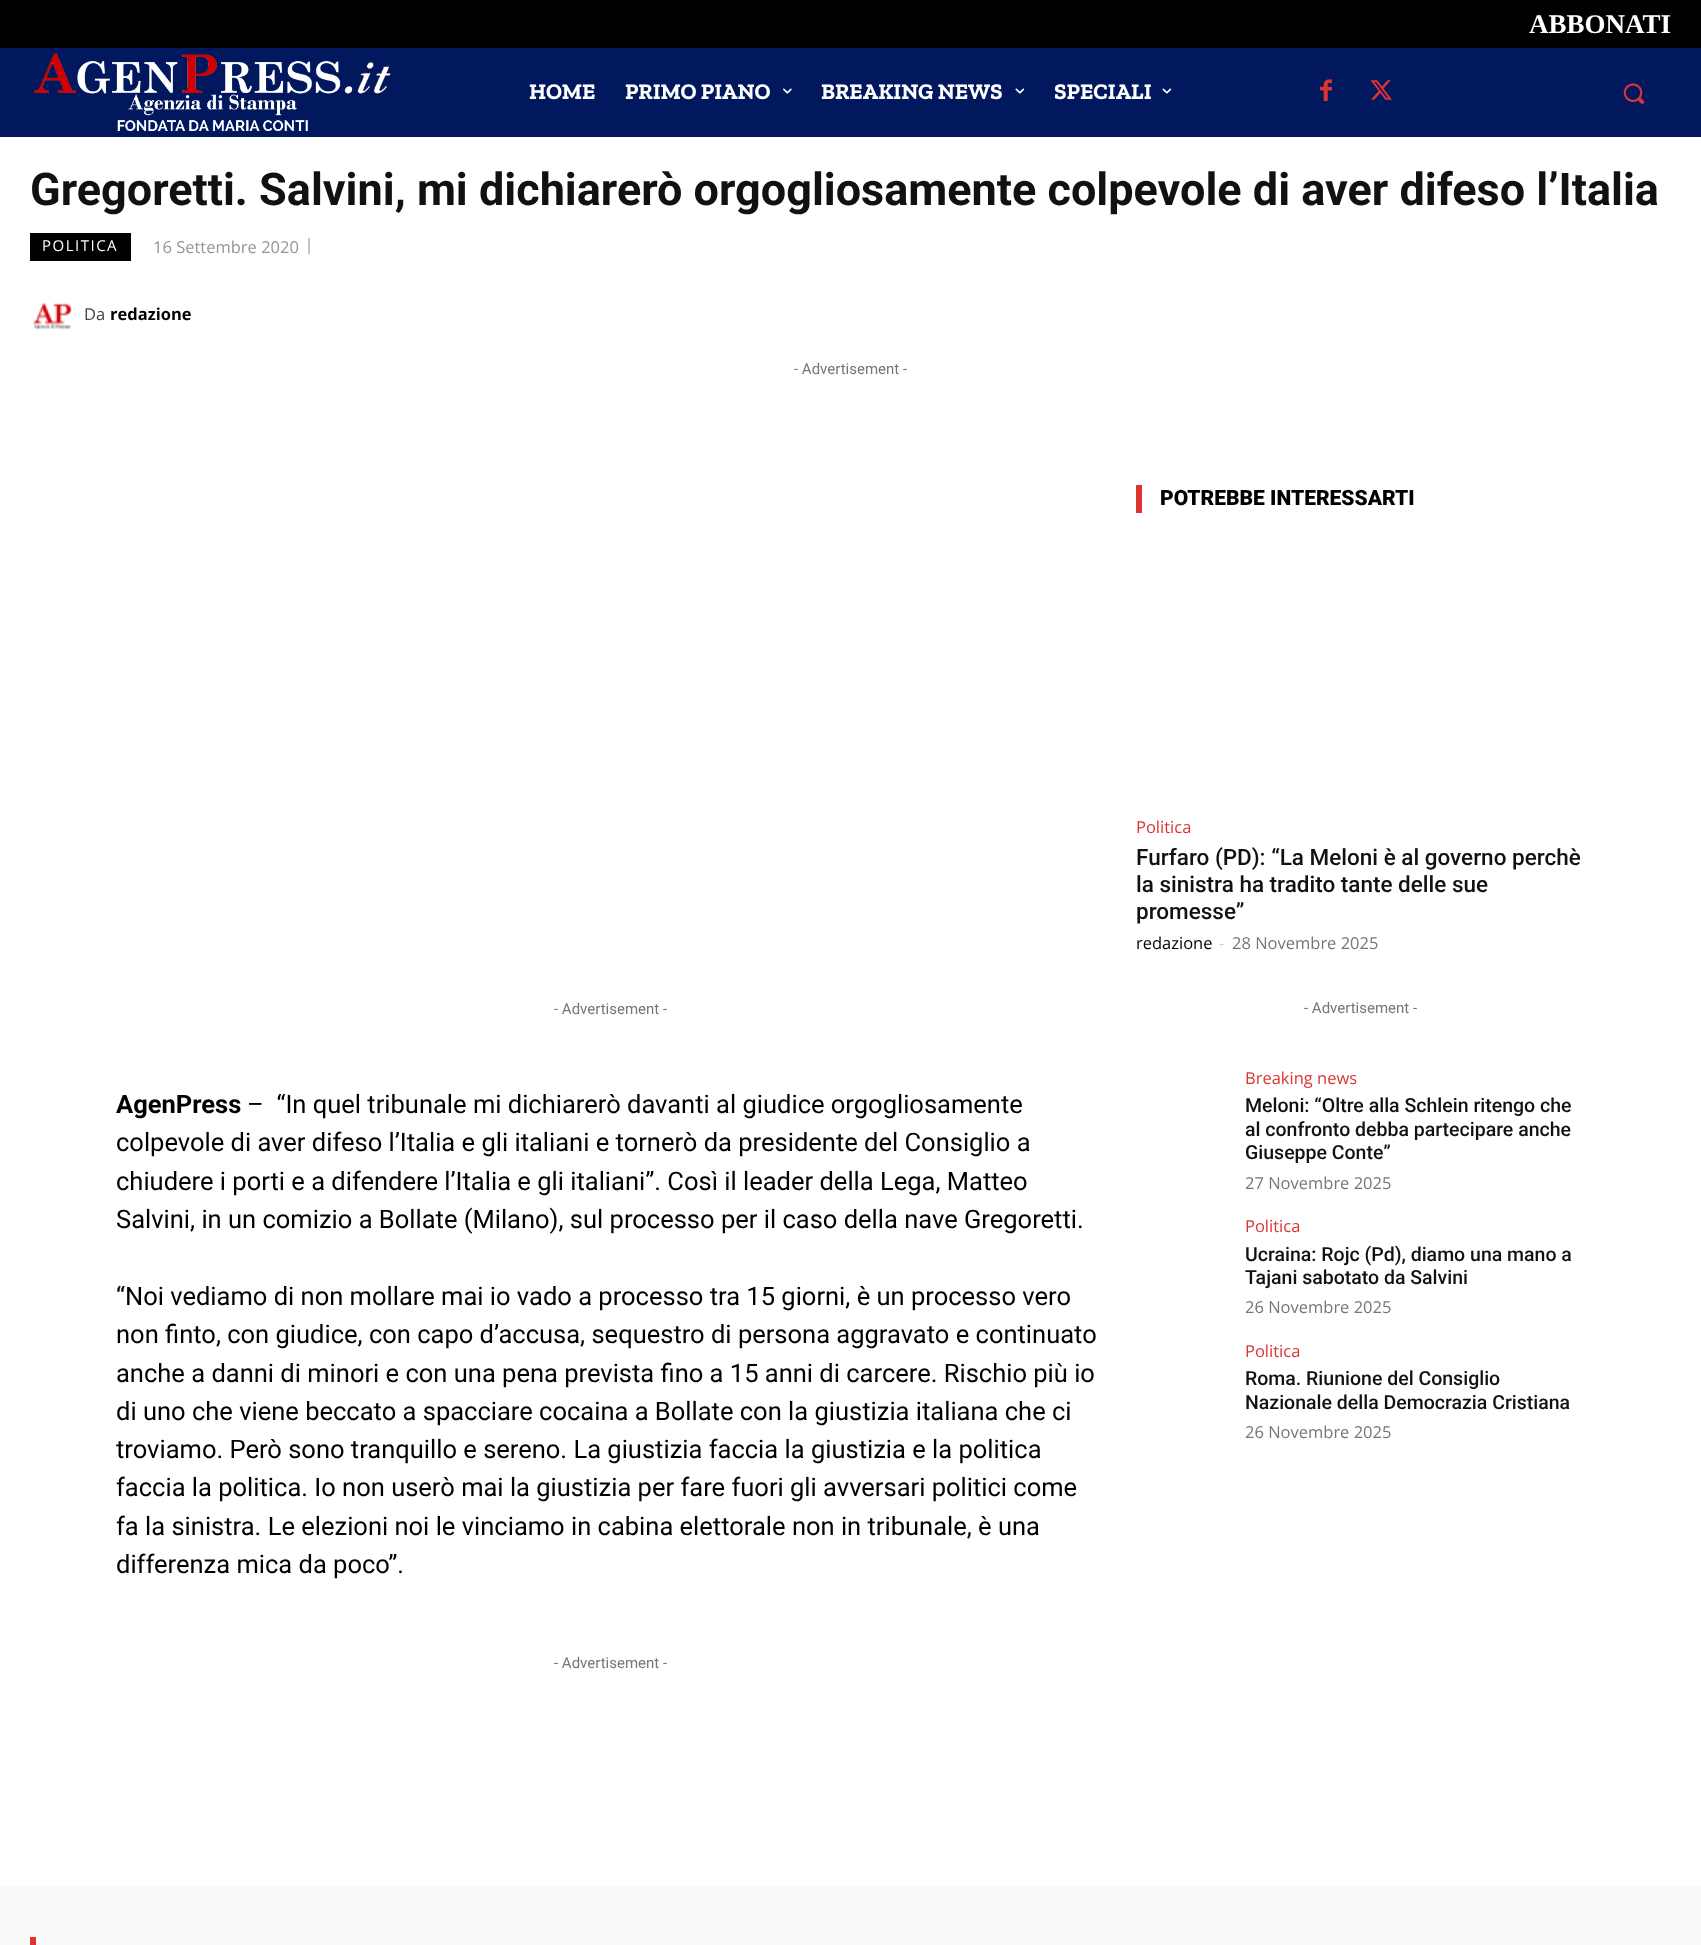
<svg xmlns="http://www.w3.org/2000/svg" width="1701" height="1945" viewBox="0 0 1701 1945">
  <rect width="100%" height="100%" fill="#ffffff"/>
  <rect x="0" y="0" width="1701" height="48" fill="#000000"/>
  <text x="1529" y="33" font-family="Liberation Serif" font-size="27" font-weight="bold" fill="#ffffff">ABBONATI</text>
  <rect x="0" y="48" width="1701" height="89" fill="#01185e"/>
  <image x="34" y="53" width="357" height="78" href="img1.png"/>
  <text x="529" y="99" font-family="Zilla Slab" font-size="22.5" font-weight="bold" fill="#ffffff">HOME</text>
  <text x="625" y="99" font-family="Zilla Slab" font-size="22.5" font-weight="bold" fill="#ffffff">PRIMO PIANO</text>
  <image x="783" y="88" width="9" height="6" href="img2.png"/>
  <text x="821" y="99" font-family="Zilla Slab" font-size="22.5" font-weight="bold" fill="#ffffff">BREAKING NEWS</text>
  <image x="1015" y="88" width="10" height="6" href="img3.png"/>
  <text x="1054" y="99" font-family="Zilla Slab" font-size="22.5" font-weight="bold" fill="#ffffff">SPECIALI</text>
  <image x="1162" y="88" width="10" height="6" href="img3.png"/>
  <image x="1320" y="79" width="12" height="22" href="img4.png"/>
  <image x="1370" y="80" width="22" height="20" href="img5.png"/>
  <image x="1623" y="83" width="22" height="21" href="img6.png"/>
  <text x="30" y="205" font-family="Roboto" font-size="45" font-weight="bold" fill="#111111">Gregoretti. Salvini, mi dichiarerò orgogliosamente colpevole di aver difeso l’Italia</text>
  <rect x="30" y="233" width="101" height="28" fill="#000000"/>
  <text x="42" y="251" font-family="Open Sans" font-size="15" letter-spacing="1.5" fill="#ffffff">POLITICA</text>
  <text x="153" y="253" font-family="Open Sans" font-size="16.5" fill="#969696">16 Settembre 2020</text>
  <rect x="308" y="238" width="2" height="16" fill="#c4c4c4"/>
  <image x="32" y="302" width="41" height="28" href="img7.png"/>
  <text x="84" y="320" font-family="Open Sans" font-size="16.5" fill="#444444">Da</text>
  <text x="110" y="320" font-family="Open Sans" font-size="16.5" font-weight="bold" fill="#000000">redazione</text>
  <text x="794" y="374" font-family="Roboto" font-size="15" fill="#767676">- Advertisement -</text>
  <text x="554" y="1014" font-family="Roboto" font-size="15" fill="#767676">- Advertisement -</text>
  <text x="116" y="1113" font-family="Roboto" font-size="25.5" font-weight="bold" fill="#000000">AgenPress</text>
  <text x="247" y="1113" font-family="Roboto" font-size="25.5" fill="#000000" xml:space="preserve">–  “In quel tribunale mi dichiarerò davanti al giudice orgogliosamente</text>
  <text x="116" y="1151" font-family="Roboto" font-size="25.5" fill="#000000">colpevole di aver difeso l’Italia e gli italiani e tornerò da presidente del Consiglio a</text>
  <text x="116" y="1190" font-family="Roboto" font-size="25.5" fill="#000000">chiudere i porti e a difendere l’Italia e gli italiani”. Così il leader della Lega, Matteo</text>
  <text x="116" y="1228" font-family="Roboto" font-size="25.5" fill="#000000">Salvini, in un comizio a Bollate (Milano), sul processo per il caso della nave Gregoretti.</text>
  <text x="116" y="1305" font-family="Roboto" font-size="25.5" fill="#000000">“Noi vediamo di non mollare mai io vado a processo tra 15 giorni, è un processo vero</text>
  <text x="116" y="1343" font-family="Roboto" font-size="25.5" fill="#000000">non finto, con giudice, con capo d’accusa, sequestro di persona aggravato e continuato</text>
  <text x="116" y="1382" font-family="Roboto" font-size="25.5" fill="#000000">anche a danni di minori e con una pena prevista fino a 15 anni di carcere. Rischio più io</text>
  <text x="116" y="1420" font-family="Roboto" font-size="25.5" fill="#000000">di uno che viene beccato a spacciare cocaina a Bollate con la giustizia italiana che ci</text>
  <text x="116" y="1458" font-family="Roboto" font-size="25.5" fill="#000000">troviamo. Però sono tranquillo e sereno. La giustizia faccia la giustizia e la politica</text>
  <text x="116" y="1496" font-family="Roboto" font-size="25.5" fill="#000000">faccia la politica. Io non userò mai la giustizia per fare fuori gli avversari politici come</text>
  <text x="116" y="1535" font-family="Roboto" font-size="25.5" fill="#000000">fa la sinistra. Le elezioni noi le vinciamo in cabina elettorale non in tribunale, è una</text>
  <text x="116" y="1573" font-family="Roboto" font-size="25.5" fill="#000000">differenza mica da poco”.</text>
  <text x="554" y="1668" font-family="Roboto" font-size="15" fill="#767676">- Advertisement -</text>
  <rect x="1136" y="485" width="6" height="28" fill="#dd3333"/>
  <text x="1160" y="505" font-family="Roboto" font-size="21" font-weight="900" fill="#000000">POTREBBE INTERESSARTI</text>
  <text x="1136" y="833" font-family="Open Sans" font-size="16.5" fill="#dd3333">Politica</text>
  <text x="1136" y="865" font-family="Roboto" font-size="22.5" font-weight="500" fill="#111111">Furfaro (PD): “La Meloni è al governo perchè</text>
  <text x="1136" y="892" font-family="Roboto" font-size="22.5" font-weight="500" fill="#111111">la sinistra ha tradito tante delle sue</text>
  <text x="1136" y="919" font-family="Roboto" font-size="22.5" font-weight="500" fill="#111111">promesse”</text>
  <text x="1136" y="949" font-family="Open Sans" font-size="16.5" fill="#000000">redazione</text>
  <text x="1219" y="949" font-family="Open Sans" font-size="16.5" fill="#cccccc">-</text>
  <text x="1232" y="949" font-family="Open Sans" font-size="16.5" fill="#767676">28 Novembre 2025</text>
  <text x="1304" y="1013" font-family="Roboto" font-size="15" fill="#767676">- Advertisement -</text>
  <text x="1245" y="1084" font-family="Open Sans" font-size="16.5" fill="#dd3333">Breaking news</text>
  <text x="1245" y="1112" font-family="Roboto" font-size="19.5" font-weight="500" fill="#111111">Meloni: “Oltre alla Schlein ritengo che</text>
  <text x="1245" y="1136" font-family="Roboto" font-size="19.5" font-weight="500" fill="#111111">al confronto debba partecipare anche</text>
  <text x="1245" y="1159" font-family="Roboto" font-size="19.5" font-weight="500" fill="#111111">Giuseppe Conte”</text>
  <text x="1245" y="1189" font-family="Open Sans" font-size="16.5" fill="#767676">27 Novembre 2025</text>
  <text x="1245" y="1232" font-family="Open Sans" font-size="16.5" fill="#dd3333">Politica</text>
  <text x="1245" y="1261" font-family="Roboto" font-size="19.5" font-weight="500" fill="#111111">Ucraina: Rojc (Pd), diamo una mano a</text>
  <text x="1245" y="1284" font-family="Roboto" font-size="19.5" font-weight="500" fill="#111111">Tajani sabotato da Salvini</text>
  <text x="1245" y="1313" font-family="Open Sans" font-size="16.5" fill="#767676">26 Novembre 2025</text>
  <text x="1245" y="1357" font-family="Open Sans" font-size="16.5" fill="#dd3333">Politica</text>
  <text x="1245" y="1385" font-family="Roboto" font-size="19.5" font-weight="500" fill="#111111">Roma. Riunione del Consiglio</text>
  <text x="1245" y="1409" font-family="Roboto" font-size="19.5" font-weight="500" fill="#111111">Nazionale della Democrazia Cristiana</text>
  <text x="1245" y="1438" font-family="Open Sans" font-size="16.5" fill="#767676">26 Novembre 2025</text>
  <rect x="0" y="1886" width="1701" height="59" fill="#f9f9f9"/>
  <rect x="30" y="1937" width="6" height="8" fill="#dd3333"/>
</svg>
